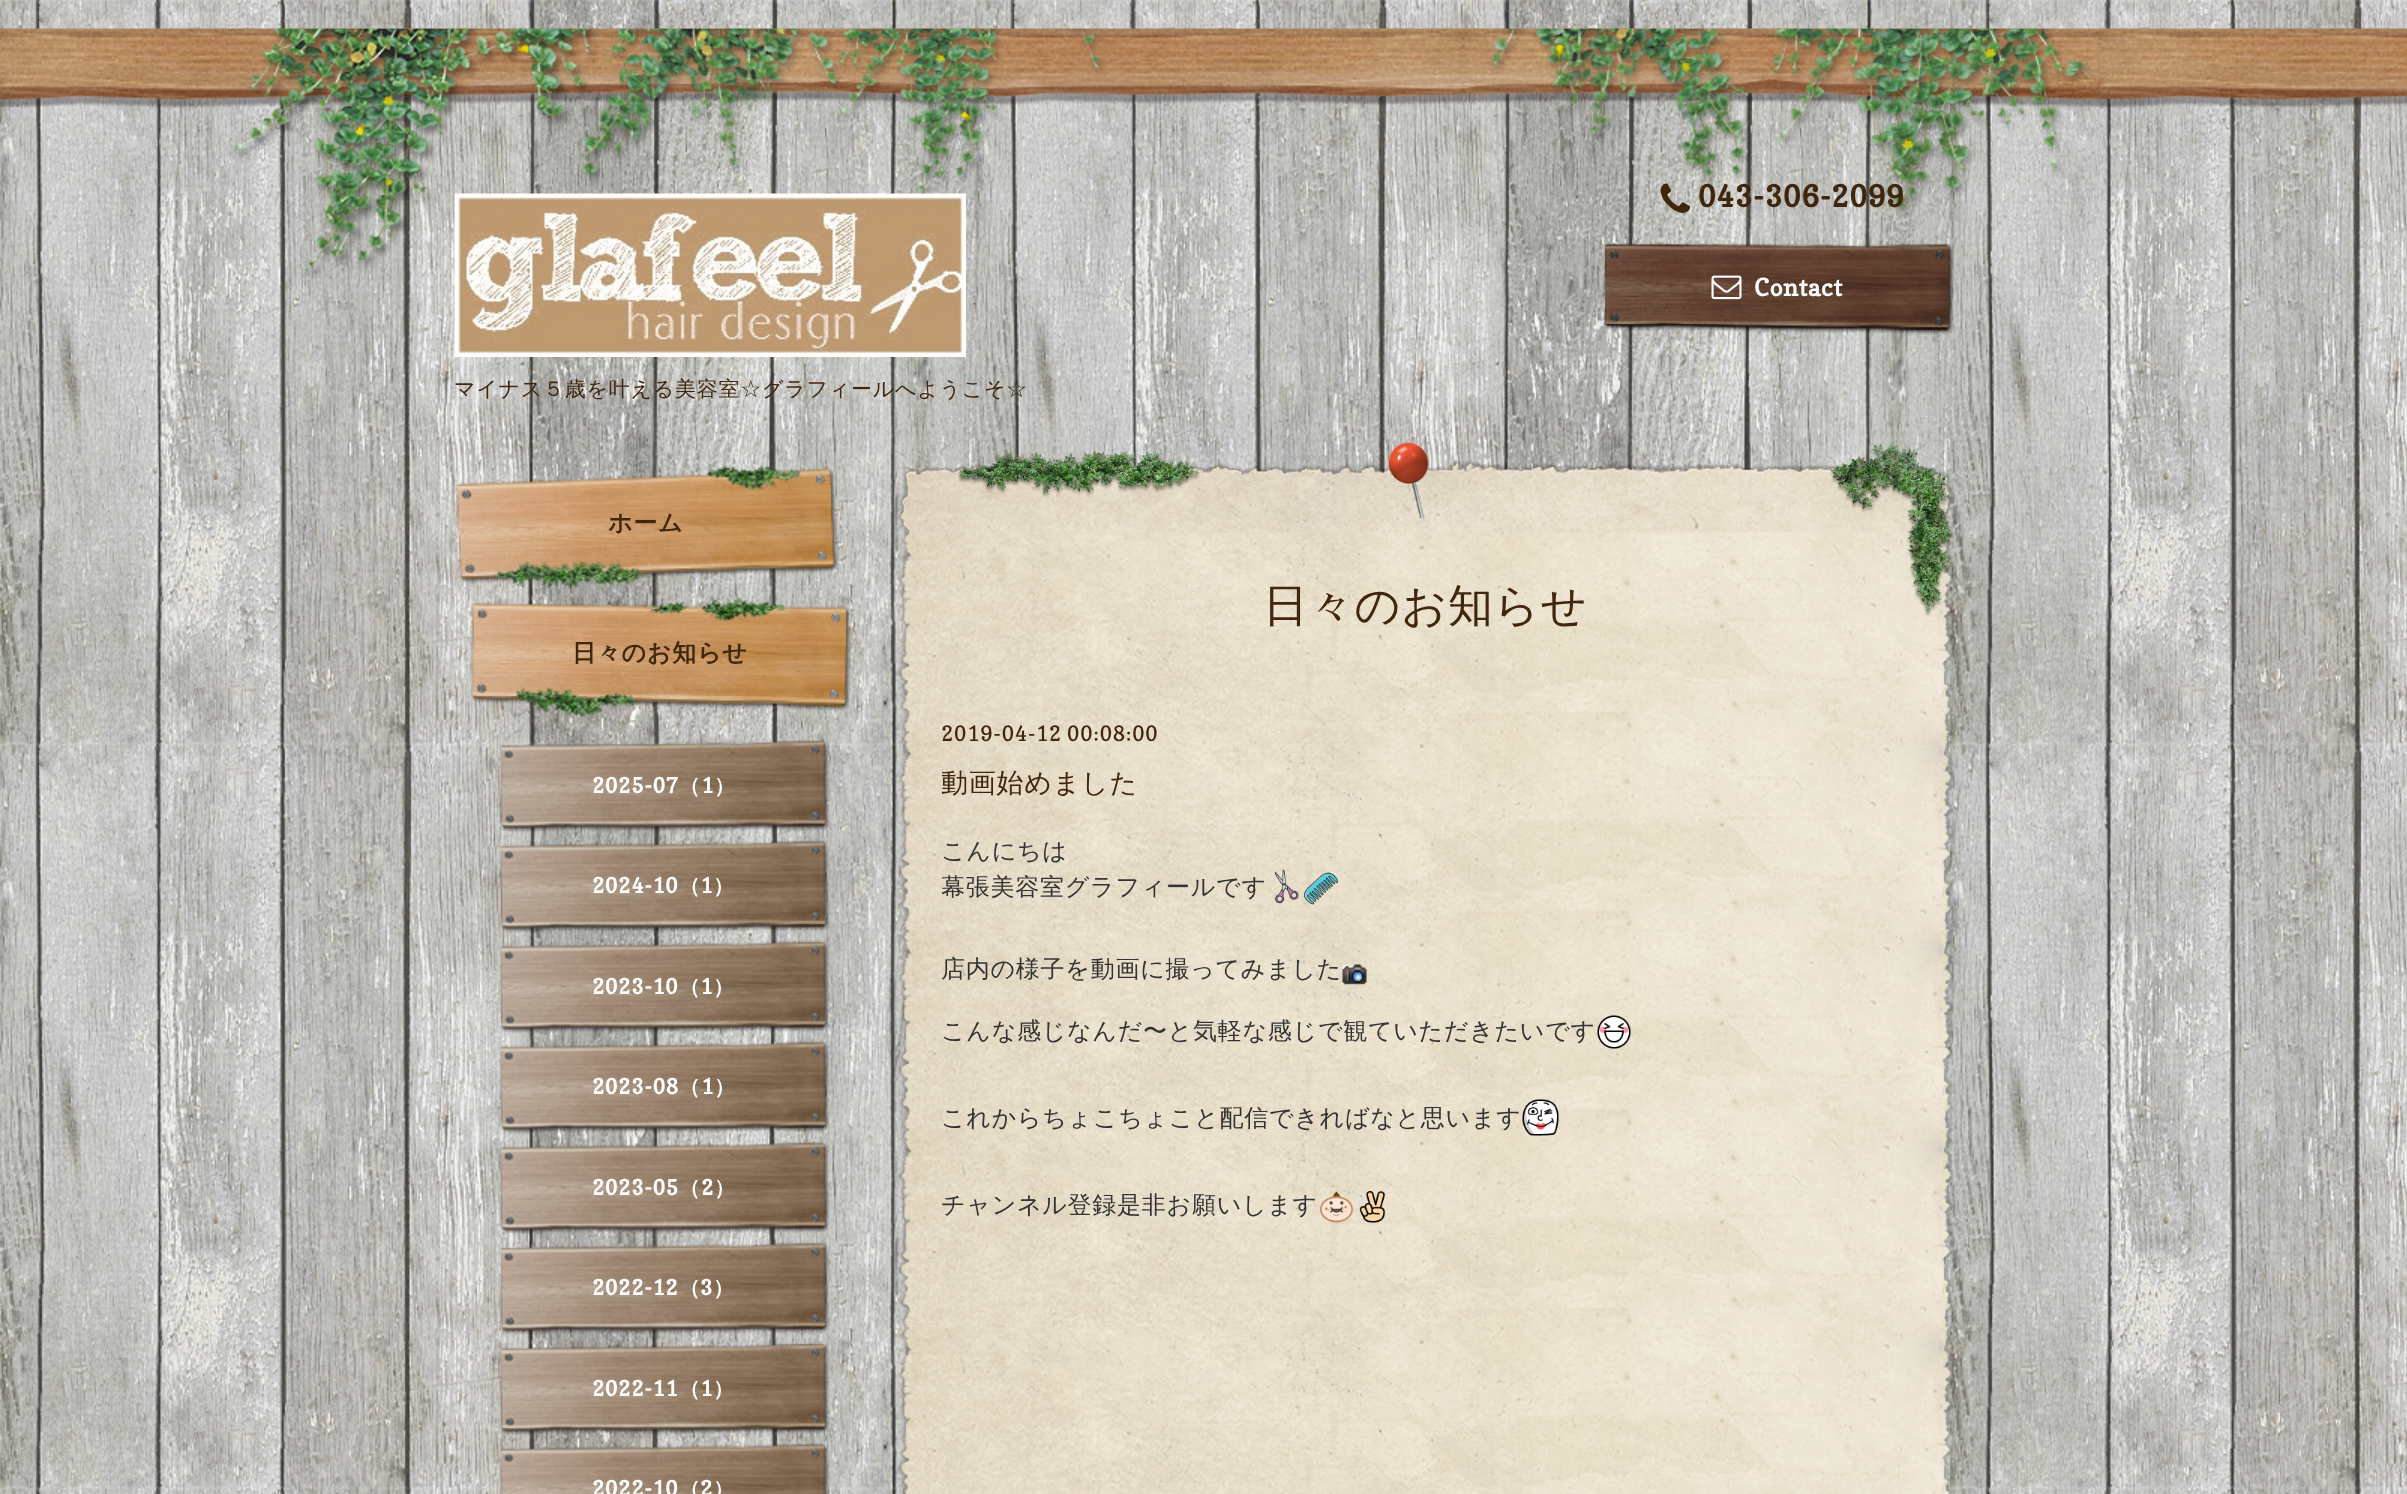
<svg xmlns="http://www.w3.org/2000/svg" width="2407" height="1494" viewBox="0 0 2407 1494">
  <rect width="100%" height="100%" fill="#ffffff"/>
  <image x="0" y="0" width="2407" height="1494" href="img1.png"/>
  <image x="0" y="28" width="2407" height="80" href="img2.png"/>
  <image x="231" y="28" width="1869" height="251" href="img3.png"/>
  <image x="1660" y="183" width="30" height="30" href="img4.png"/>
  <text x="1698" y="207" font-family="Copse" font-size="30" font-weight="bold" letter-spacing="0.75" fill="#3f260d">043-306-2099</text>
  <image x="1603" y="242" width="352" height="93" href="img5.png"/>
  <image x="1711" y="275" width="31" height="25" href="img6.png"/>
  <text x="1754" y="296" font-family="Copse" font-size="24" font-weight="bold" letter-spacing="0.75" fill="#ffffff">Contact</text>
  <image x="454" y="193" width="512" height="164" href="img7.png"/>
  <text x="454" y="396" font-family="WenQuanYi Zen Hei" font-size="21" font-weight="500" letter-spacing="0.75" fill="#3f260d">マイナス５歳を叶える美容室☆グラフィールへようこそ☆</text>
  <image x="455" y="465" width="384" height="124" href="img8.png"/>
  <text x="608" y="531" font-family="WenQuanYi Zen Hei" font-size="24" font-weight="bold" letter-spacing="0.75" fill="#3f260d">ホーム</text>
  <image x="470" y="597" width="382" height="120" href="img9.png"/>
  <text x="572" y="661" font-family="WenQuanYi Zen Hei" font-size="24" font-weight="bold" letter-spacing="0.75" fill="#3f260d">日々のお知らせ</text>
  <image x="499" y="739" width="331" height="94" href="img10.png"/>
  <text x="592" y="793" font-family="Copse" font-size="21" font-weight="bold" letter-spacing="0.75" fill="#ffffff">2025-07</text>
  <text x="679" y="793" font-family="WenQuanYi Zen Hei" font-size="21" font-weight="bold" letter-spacing="0.75" fill="#ffffff">（</text>
  <text x="701" y="793" font-family="Copse" font-size="21" font-weight="bold" letter-spacing="0.75" fill="#ffffff">1</text>
  <text x="714" y="793" font-family="WenQuanYi Zen Hei" font-size="21" font-weight="bold" letter-spacing="0.75" fill="#ffffff">）</text>
  <image x="499" y="840" width="331" height="93" href="img11.png"/>
  <text x="592" y="893" font-family="Copse" font-size="21" font-weight="bold" letter-spacing="0.75" fill="#ffffff">2024-10</text>
  <text x="679" y="893" font-family="WenQuanYi Zen Hei" font-size="21" font-weight="bold" letter-spacing="0.75" fill="#ffffff">（</text>
  <text x="700" y="893" font-family="Copse" font-size="21" font-weight="bold" letter-spacing="0.75" fill="#ffffff">1</text>
  <text x="713" y="893" font-family="WenQuanYi Zen Hei" font-size="21" font-weight="bold" letter-spacing="0.75" fill="#ffffff">）</text>
  <image x="499" y="940" width="331" height="94" href="img12.png"/>
  <text x="592" y="994" font-family="Copse" font-size="21" font-weight="bold" letter-spacing="0.75" fill="#ffffff">2023-10</text>
  <text x="679" y="994" font-family="WenQuanYi Zen Hei" font-size="21" font-weight="bold" letter-spacing="0.75" fill="#ffffff">（</text>
  <text x="700" y="994" font-family="Copse" font-size="21" font-weight="bold" letter-spacing="0.75" fill="#ffffff">1</text>
  <text x="713" y="994" font-family="WenQuanYi Zen Hei" font-size="21" font-weight="bold" letter-spacing="0.75" fill="#ffffff">）</text>
  <image x="499" y="1041" width="331" height="93" href="img13.png"/>
  <text x="592" y="1094" font-family="Copse" font-size="21" font-weight="bold" letter-spacing="0.75" fill="#ffffff">2023-08</text>
  <text x="679" y="1094" font-family="WenQuanYi Zen Hei" font-size="21" font-weight="bold" letter-spacing="0.75" fill="#ffffff">（</text>
  <text x="701" y="1094" font-family="Copse" font-size="21" font-weight="bold" letter-spacing="0.75" fill="#ffffff">1</text>
  <text x="714" y="1094" font-family="WenQuanYi Zen Hei" font-size="21" font-weight="bold" letter-spacing="0.75" fill="#ffffff">）</text>
  <image x="499" y="1141" width="331" height="94" href="img14.png"/>
  <text x="592" y="1195" font-family="Copse" font-size="21" font-weight="bold" letter-spacing="0.75" fill="#ffffff">2023-05</text>
  <text x="679" y="1195" font-family="WenQuanYi Zen Hei" font-size="21" font-weight="bold" letter-spacing="0.75" fill="#ffffff">（</text>
  <text x="701" y="1195" font-family="Copse" font-size="21" font-weight="bold" letter-spacing="0.75" fill="#ffffff">2</text>
  <text x="714" y="1195" font-family="WenQuanYi Zen Hei" font-size="21" font-weight="bold" letter-spacing="0.75" fill="#ffffff">）</text>
  <image x="499" y="1242" width="331" height="93" href="img15.png"/>
  <text x="592" y="1295" font-family="Copse" font-size="21" font-weight="bold" letter-spacing="0.75" fill="#ffffff">2022-12</text>
  <text x="679" y="1295" font-family="WenQuanYi Zen Hei" font-size="21" font-weight="bold" letter-spacing="0.75" fill="#ffffff">（</text>
  <text x="700" y="1295" font-family="Copse" font-size="21" font-weight="bold" letter-spacing="0.75" fill="#ffffff">3</text>
  <text x="713" y="1295" font-family="WenQuanYi Zen Hei" font-size="21" font-weight="bold" letter-spacing="0.75" fill="#ffffff">）</text>
  <image x="499" y="1342" width="331" height="94" href="img16.png"/>
  <text x="592" y="1396" font-family="Copse" font-size="21" font-weight="bold" letter-spacing="0.75" fill="#ffffff">2022-11</text>
  <text x="679" y="1396" font-family="WenQuanYi Zen Hei" font-size="21" font-weight="bold" letter-spacing="0.75" fill="#ffffff">（</text>
  <text x="700" y="1396" font-family="Copse" font-size="21" font-weight="bold" letter-spacing="0.75" fill="#ffffff">1</text>
  <text x="713" y="1396" font-family="WenQuanYi Zen Hei" font-size="21" font-weight="bold" letter-spacing="0.75" fill="#ffffff">）</text>
  <image x="499" y="1443" width="331" height="51" href="img17.png"/>
  <text x="592" y="1496" font-family="Copse" font-size="21" font-weight="bold" letter-spacing="0.75" fill="#ffffff">2022-10</text>
  <text x="679" y="1496" font-family="WenQuanYi Zen Hei" font-size="21" font-weight="bold" letter-spacing="0.75" fill="#ffffff">（</text>
  <text x="700" y="1496" font-family="Copse" font-size="21" font-weight="bold" letter-spacing="0.75" fill="#ffffff">2</text>
  <text x="713" y="1496" font-family="WenQuanYi Zen Hei" font-size="21" font-weight="bold" letter-spacing="0.75" fill="#ffffff">）</text>
  <image x="897" y="442" width="1057" height="95" href="img18.png"/>
  <image x="958" y="450" width="242" height="48" href="img19.png"/>
  <image x="897" y="532" width="1058" height="962" href="img21.png"/>
  <image x="1830" y="442" width="123" height="175" href="img20.png"/>
  <text x="1263" y="621" font-family="WenQuanYi Zen Hei" font-size="45" font-weight="500" letter-spacing="0.75" fill="#3f260d">日々のお知らせ</text>
  <text x="941" y="741" font-family="Copse" font-size="21" letter-spacing="0.75" fill="#3f260d">2019-04-12 00:08:00</text>
  <text x="941" y="792" font-family="WenQuanYi Zen Hei" font-size="27" font-weight="500" letter-spacing="0.75" fill="#3f260d">動画始めました</text>
  <text x="941" y="859" font-family="WenQuanYi Zen Hei" font-size="24" font-weight="500" letter-spacing="0.75" fill="#333333">こんにちは</text>
  <text x="941" y="895" font-family="WenQuanYi Zen Hei" font-size="24" font-weight="500" letter-spacing="0.75" fill="#333333">幕張美容室グラフィールです</text>
  <image x="1274" y="869" width="25" height="35" href="img22.png"/>
  <image x="1304" y="872" width="35" height="33" href="img23.png"/>
  <text x="941" y="977" font-family="WenQuanYi Zen Hei" font-size="24" font-weight="500" letter-spacing="0.75" fill="#333333">店内の様子を動画に撮ってみました</text>
  <image x="1342" y="964" width="25" height="21" href="img24.png"/>
  <text x="941" y="1039" font-family="WenQuanYi Zen Hei" font-size="24" font-weight="500" letter-spacing="0.75" fill="#333333">こんな感じなんだ〜と気軽な感じで観ていただきたいです</text>
  <image x="1597" y="1015" width="34" height="34" href="img25.png"/>
  <text x="941" y="1126" font-family="WenQuanYi Zen Hei" font-size="24" font-weight="500" letter-spacing="0.75" fill="#333333">これからちょこちょこと配信できればなと思います</text>
  <image x="1522" y="1099" width="37" height="37" href="img26.png"/>
  <text x="941" y="1213" font-family="WenQuanYi Zen Hei" font-size="24" font-weight="500" letter-spacing="0.75" fill="#333333">チャンネル登録是非お願いします</text>
  <image x="1320" y="1191" width="33" height="32" href="img27.png"/>
  <image x="1359" y="1191" width="27" height="32" href="img28.png"/>
</svg>
